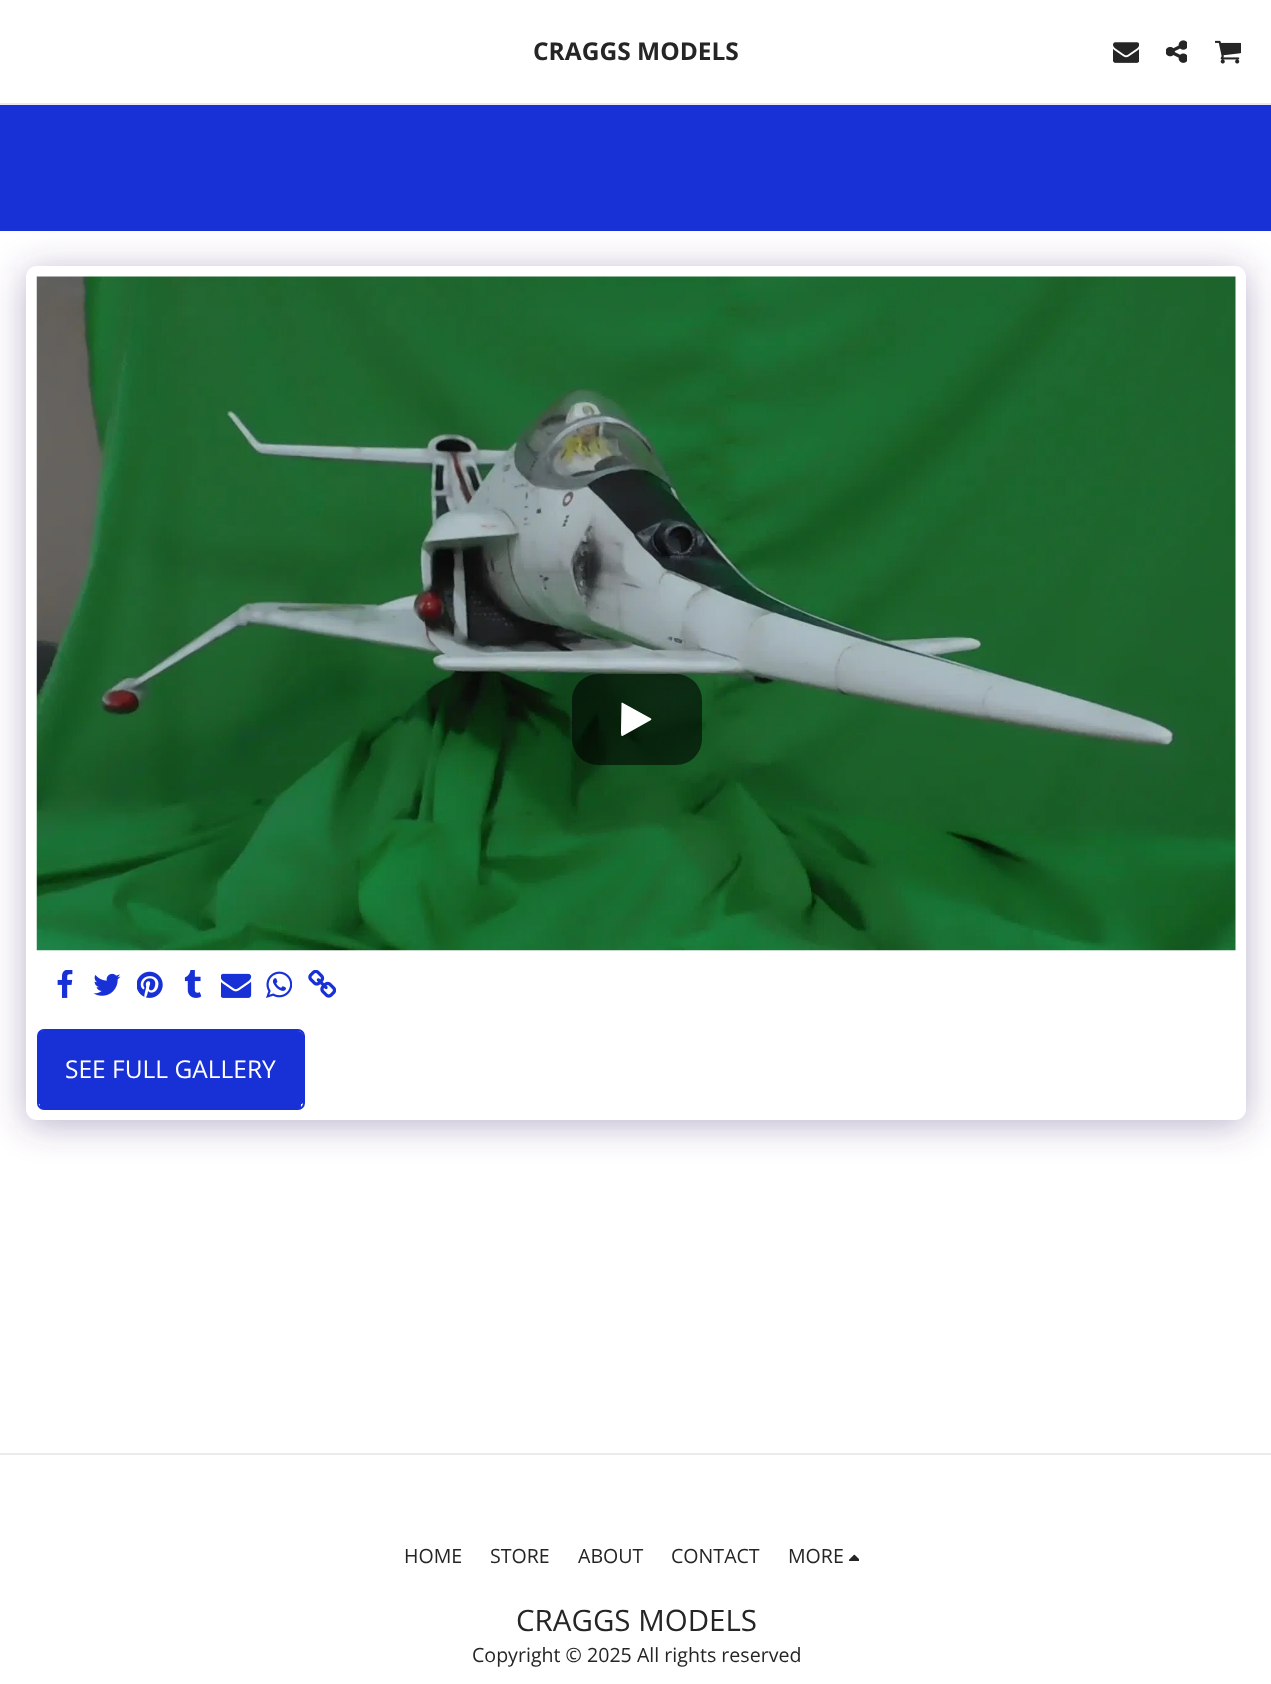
<svg xmlns="http://www.w3.org/2000/svg" width="1271" height="1684" viewBox="0 0 1271 1684">
  <defs>
    <filter id="blur1" x="-50%" y="-200%" width="200%" height="500%"><feGaussianBlur stdDeviation="17.5"/></filter>
  </defs>
  <rect width="100%" height="100%" fill="#ffffff"/>
  <rect x="0" y="103" width="1271" height="2" fill="#ebebeb"/>
  <text x="533" y="60" font-family="Open Sans" font-size="24.5" font-weight="bold" fill="#252525">CRAGGS MODELS</text>
  <image x="1113" y="42" width="26" height="21" href="img1.png"/>
  <image x="1166" y="40" width="21" height="23" href="img2.png"/>
  <image x="1215" y="40" width="26" height="24" href="img3.png"/>
  <rect x="0" y="105" width="1271" height="126" fill="#1831d6"/>
  <rect x="26" y="271" width="1220" height="854" rx="11" fill="#4d3f7a" fill-opacity="0.4" filter="url(#blur1)"/>
  <rect x="26" y="266" width="1220" height="854" rx="11" fill="#ffffff"/>
  <image x="36" y="276" width="1200" height="675" href="img4.png"/>
  <rect x="572" y="674" width="130" height="91" rx="26" fill="#000000" fill-opacity="0.57"/>
  <path d="M651 720L622.5 736C621 736.5 621 734.5 621 730L621.5 703L622 702.5L651 718.5C651.5 719 651.5 719.5 651 720Z" fill="#ffffff"/>
  <image x="57" y="970" width="16" height="28" href="img5.png"/>
  <image x="93" y="973" width="28" height="23" href="img6.png"/>
  <image x="137" y="971" width="26" height="27" href="img7.png"/>
  <image x="184" y="970" width="18" height="28" href="img8.png"/>
  <image x="221" y="973" width="31" height="25" href="img9.png"/>
  <image x="266" y="971" width="26" height="27" href="img10.png"/>
  <image x="308" y="970" width="28" height="28" href="img11.png"/>
  <path d="M43 1031H298C301 1031 303 1033 303 1035V1103C303 1104 301 1104 298 1104H43C40 1104 38 1104 38 1103V1035C38 1033 40 1031 43 1031Z" fill="#1831d6"/>
  <rect x="38" y="1030" width="266" height="79" rx="6" fill="none" stroke="#1831d6" stroke-width="2"/>
  <rect x="40" y="1104" width="261" height="4" fill="#1831d6"/>
  <text x="65" y="1078" font-family="Open Sans" font-size="24.5" fill="#ffffff">SEE FULL GALLERY</text>
  <rect x="0" y="1453" width="1271" height="2" fill="#ebebeb"/>
  <text x="404" y="1563" font-family="Open Sans" font-size="19.6" fill="#252525">HOME</text>
  <text x="490" y="1563" font-family="Open Sans" font-size="19.6" fill="#252525">STORE</text>
  <text x="578" y="1563" font-family="Open Sans" font-size="19.6" fill="#252525">ABOUT</text>
  <text x="671" y="1563" font-family="Open Sans" font-size="19.6" fill="#252525">CONTACT</text>
  <text x="788" y="1563" font-family="Open Sans" font-size="19.6" fill="#252525">MORE</text>
  <image x="849" y="1554" width="10" height="7" href="img12.png"/>
  <text x="516" y="1631" font-family="Open Sans" font-size="29.5" fill="#252525">CRAGGS MODELS</text>
  <text x="472" y="1662" font-family="Open Sans" font-size="19.6" fill="#252525">Copyright © 2025 All rights reserved</text>
</svg>
